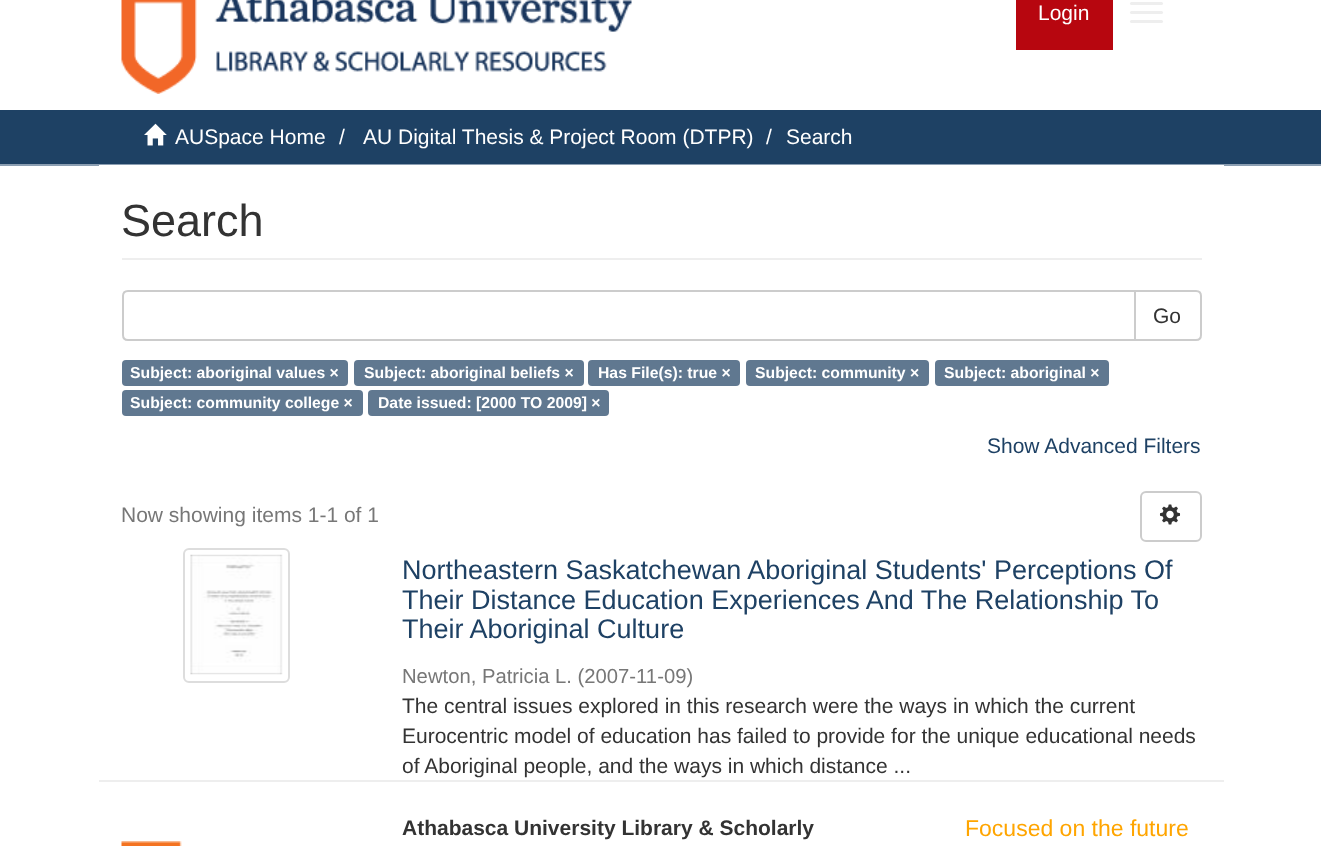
<svg xmlns="http://www.w3.org/2000/svg" width="1321" height="846" viewBox="0 0 1321 846">
  <rect width="100%" height="100%" fill="#ffffff"/>
  <image x="121" y="0" width="511" height="94" href="img1.png"/>
  <rect x="1016" y="0" width="97" height="50" fill="#b7060f"/>
  <text x="1038" y="20" font-family="Liberation Sans" font-size="21" fill="#ffffff">Login</text>
  <rect x="1130" y="2" width="33" height="3" rx="1.5" fill="#eeeeee"/>
  <rect x="1130" y="11" width="33" height="3" rx="1.5" fill="#eeeeee"/>
  <rect x="1130" y="20" width="33" height="3" rx="1.5" fill="#eeeeee"/>
  <rect x="0" y="110" width="1321" height="54" fill="#1e4164"/>
  <rect x="0" y="164" width="1321" height="2" fill="#8b9eb2"/>
  <image x="144" y="123" width="23" height="23" href="img2.png"/>
  <text x="175" y="144" font-family="Liberation Sans" font-size="21" fill="#ffffff">AUSpace Home</text>
  <text x="339" y="144" font-family="Liberation Sans" font-size="21" fill="#ffffff">/</text>
  <text x="363" y="144" font-family="Liberation Sans" font-size="21" fill="#ffffff">AU Digital Thesis &amp; Project Room (DTPR)</text>
  <text x="766" y="144" font-family="Liberation Sans" font-size="21" fill="#ffffff">/</text>
  <text x="786" y="144" font-family="Liberation Sans" font-size="21" fill="#ffffff">Search</text>
  <rect x="99" y="165" width="1125" height="1" fill="#ffffff"/>
  <rect x="122" y="258" width="1080" height="2" fill="#eeeeee"/>
  <text x="121" y="236" font-family="Liberation Sans" font-size="45" fill="#333333">Search</text>
  <path d="M1135 291H1196C1199 291 1201 293 1201 296V335C1201 338 1199 340 1196 340H1135Z" fill="none" stroke="#cccccc" stroke-width="2"/>
  <path d="M128 291H1135V340H128C125 340 123 338 123 335V296C123 293 125 291 128 291Z" fill="#ffffff" stroke="#cccccc" stroke-width="2"/>
  <text x="1153" y="323" font-family="Liberation Sans" font-size="21" fill="#333333">Go</text>
  <rect x="122" y="360" width="226" height="26" rx="4" fill="#607890"/>
  <text x="130" y="378" font-family="Liberation Sans" font-size="15.75" font-weight="bold" fill="#ffffff">Subject: aboriginal values ×</text>
  <rect x="354" y="360" width="230" height="26" rx="4" fill="#607890"/>
  <text x="364" y="378" font-family="Liberation Sans" font-size="15.75" font-weight="bold" fill="#ffffff">Subject: aboriginal beliefs ×</text>
  <rect x="588" y="360" width="152" height="26" rx="4" fill="#607890"/>
  <text x="598" y="378" font-family="Liberation Sans" font-size="15.75" font-weight="bold" fill="#ffffff">Has File(s): true ×</text>
  <rect x="746" y="360" width="183" height="26" rx="4" fill="#607890"/>
  <text x="755" y="378" font-family="Liberation Sans" font-size="15.75" font-weight="bold" fill="#ffffff">Subject: community ×</text>
  <rect x="935" y="360" width="174" height="26" rx="4" fill="#607890"/>
  <text x="944" y="378" font-family="Liberation Sans" font-size="15.75" font-weight="bold" fill="#ffffff">Subject: aboriginal ×</text>
  <rect x="122" y="390" width="241" height="26" rx="4" fill="#607890"/>
  <text x="130" y="408" font-family="Liberation Sans" font-size="15.75" font-weight="bold" fill="#ffffff">Subject: community college ×</text>
  <rect x="368" y="390" width="241" height="26" rx="4" fill="#607890"/>
  <text x="378" y="408" font-family="Liberation Sans" font-size="15.75" font-weight="bold" fill="#ffffff">Date issued: [2000 TO 2009] ×</text>
  <text x="987" y="453" font-family="Liberation Sans" font-size="21" fill="#1e4164">Show Advanced Filters</text>
  <text x="121" y="522" font-family="Liberation Sans" font-size="21" fill="#777777">Now showing items 1-1 of 1</text>
  <rect x="1141" y="492" width="60" height="49" rx="5" fill="none" stroke="#cccccc" stroke-width="2"/>
  <image x="1159" y="504" width="22" height="21" href="img3.png"/>
  <rect x="184" y="549" width="105" height="133" rx="5" fill="none" stroke="#dddddd" stroke-width="2"/>
  <image x="190" y="554" width="93" height="121" href="img4.png"/>
  <text x="402" y="579" font-family="Liberation Sans" font-size="27" fill="#1e4164">Northeastern Saskatchewan Aboriginal Students' Perceptions Of</text>
  <text x="402" y="609" font-family="Liberation Sans" font-size="27" fill="#1e4164">Their Distance Education Experiences And The Relationship To</text>
  <text x="402" y="638" font-family="Liberation Sans" font-size="27" fill="#1e4164">Their Aboriginal Culture</text>
  <text x="402" y="683" font-family="Liberation Sans" font-size="20.25" fill="#777777">Newton, Patricia L. (2007-11-09)</text>
  <text x="402" y="713" font-family="Liberation Sans" font-size="21" fill="#333333">The central issues explored in this research were the ways in which the current</text>
  <text x="402" y="743" font-family="Liberation Sans" font-size="21" fill="#333333">Eurocentric model of education has failed to provide for the unique educational needs</text>
  <text x="402" y="773" font-family="Liberation Sans" font-size="21" fill="#333333">of Aboriginal people, and the ways in which distance ...</text>
  <rect x="99" y="780" width="1125" height="2" fill="#eeeeee"/>
  <image x="121" y="841" width="61" height="5" href="img5.png"/>
  <text x="402" y="835" font-family="Liberation Sans" font-size="21" font-weight="bold" fill="#333333">Athabasca University Library &amp; Scholarly</text>
  <text x="965" y="836" font-family="Liberation Sans" font-size="23" fill="#ffa500">Focused on the future</text>
</svg>
